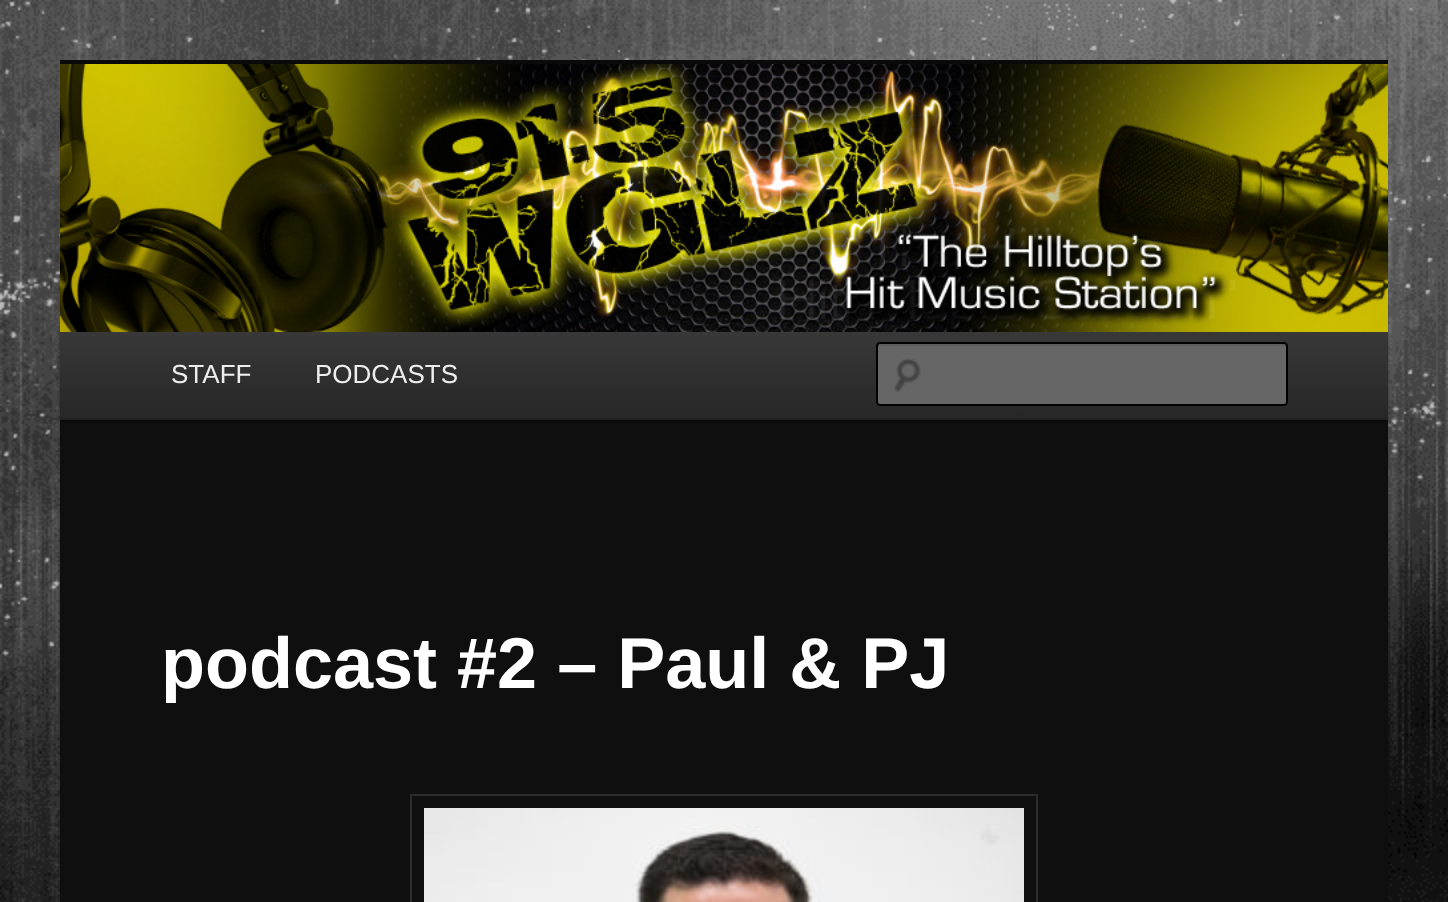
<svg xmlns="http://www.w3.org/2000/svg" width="1448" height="902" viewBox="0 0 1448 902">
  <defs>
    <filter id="blur1" x="-50%" y="-200%" width="200%" height="500%"><feGaussianBlur stdDeviation="2"/></filter>
    <linearGradient id="g1" gradientUnits="userSpaceOnUse" x1="724" y1="332" x2="724" y2="418"><stop offset="0" stop-color="#383838"/><stop offset="1" stop-color="#272727"/></linearGradient>
  </defs>
  <rect width="100%" height="100%" fill="#ffffff"/>
  <image x="0" y="0" width="1448" height="902" href="img1.png"/>
  <rect x="60" y="420" width="1328" height="482" fill="#0f0f0f"/>
  <rect x="60" y="60" width="1328" height="4" fill="#0a0a0a"/>
  <rect x="60" y="334" width="1328" height="88" fill="#000000" fill-opacity="0.4" filter="url(#blur1)"/>
  <image x="60" y="64" width="1328" height="268" href="img2.png"/>
  <rect x="60" y="332" width="1328" height="86" fill="url(#g1)"/>
  <rect x="60" y="418" width="1328" height="2" fill="#222222"/>
  <text x="171" y="383" font-family="Liberation Sans" font-size="26" fill="#eeeeee">STAFF</text>
  <text x="315" y="383" font-family="Liberation Sans" font-size="26" fill="#eeeeee">PODCASTS</text>
  <rect x="876" y="342" width="412" height="64" rx="4" fill="#666666"/>
  <image x="894" y="358" width="27" height="34" href="img3.png"/>
  <path d="M880 346H1284C1285 346 1286 347 1286 348C1286 346 1286 344 1284 344H880L878 345V348C878 347 879 346 880 346Z" fill="#5c5c5c"/>
  <rect x="877" y="343" width="410" height="62" rx="3" fill="none" stroke="#000000" stroke-width="2"/>
  <text x="161" y="688" font-family="Liberation Sans" font-size="72" font-weight="bold" fill="#ffffff">podcast #2 – Paul &amp; PJ</text>
  <rect x="411" y="795" width="626" height="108" fill="none" stroke="#2c2c2c" stroke-width="2"/>
  <image x="424" y="808" width="600" height="94" href="img4.png"/>
</svg>
